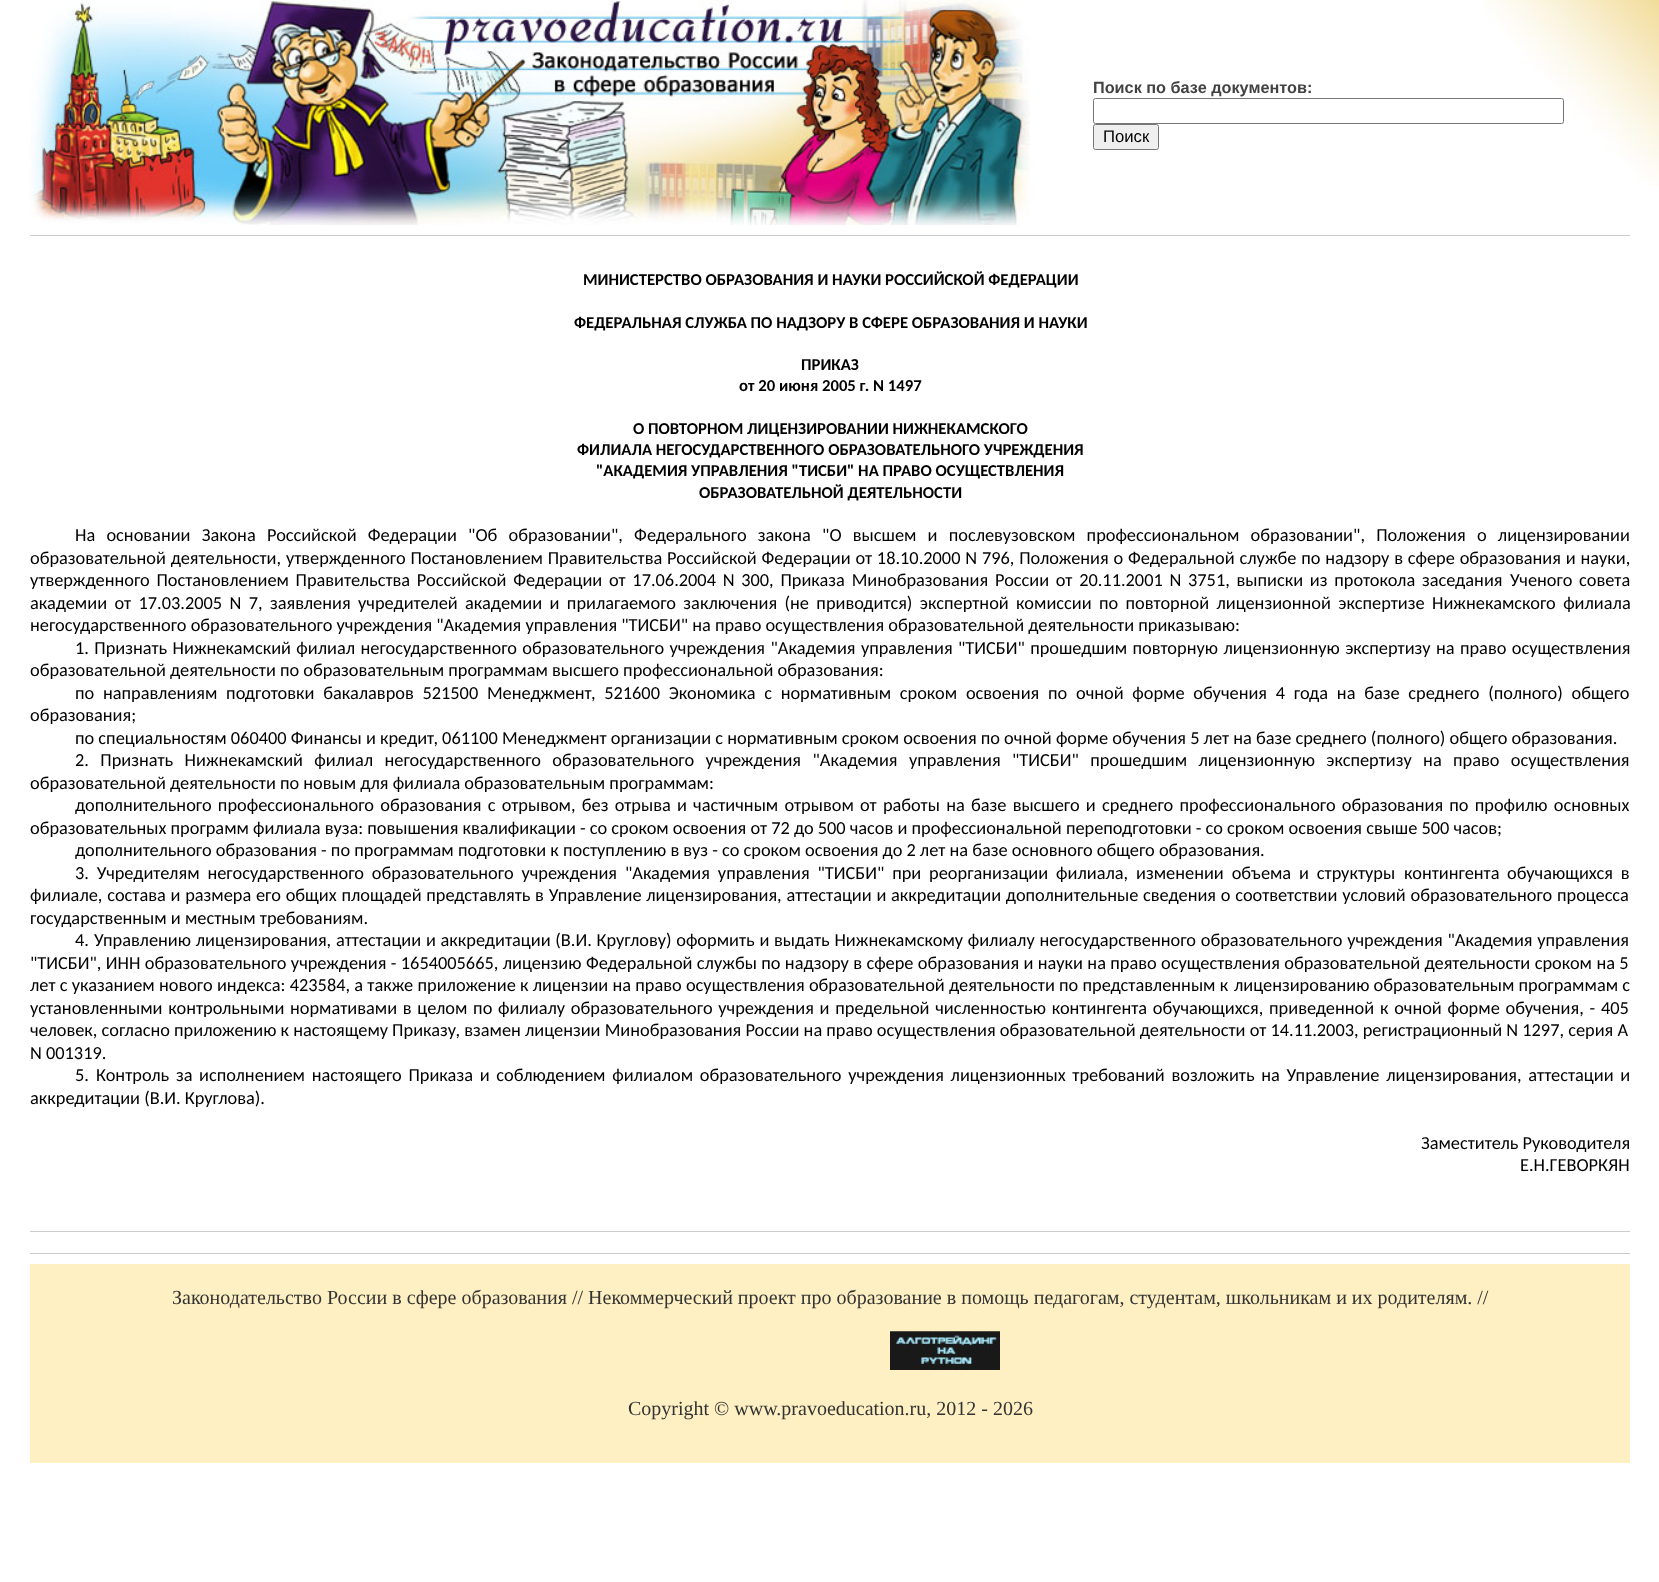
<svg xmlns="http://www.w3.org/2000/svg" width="1659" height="1582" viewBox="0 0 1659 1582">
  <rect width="100%" height="100%" fill="#ffffff"/>
  <image x="1484" y="0" width="175" height="187" href="img1.png"/>
  <image x="30" y="0" width="1000" height="225" href="img2.png"/>
  <text x="1093" y="93" font-family="Liberation Sans" font-size="16.25" font-weight="bold" fill="#424242">Поиск по базе документов:</text>
  <rect x="1093.5" y="98.5" width="470" height="25" rx="2" fill="#ffffff" stroke="#767676"/>
  <rect x="1093.5" y="124.5" width="65" height="25" rx="2" fill="#efefef" stroke="#767676"/>
  <text x="1103" y="142" font-family="Liberation Sans" font-size="16.7" fill="#000000">Поиск</text>
  <rect x="30" y="235" width="1600" height="1" fill="#cccccc"/>
  <text x="583" y="285" font-family="Carlito" font-size="16.7" font-weight="bold" fill="#000000">МИНИСТЕРСТВО ОБРАЗОВАНИЯ И НАУКИ РОССИЙСКОЙ ФЕДЕРАЦИИ</text>
  <text x="574" y="328" font-family="Carlito" font-size="16.7" font-weight="bold" fill="#000000">ФЕДЕРАЛЬНАЯ СЛУЖБА ПО НАДЗОРУ В СФЕРЕ ОБРАЗОВАНИЯ И НАУКИ</text>
  <text x="801" y="370" font-family="Carlito" font-size="16.7" font-weight="bold" fill="#000000">ПРИКАЗ</text>
  <text x="739" y="391" font-family="Carlito" font-size="16.7" font-weight="bold" fill="#000000">от 20 июня 2005 г. N 1497</text>
  <text x="633" y="434" font-family="Carlito" font-size="16.7" font-weight="bold" fill="#000000">О ПОВТОРНОМ ЛИЦЕНЗИРОВАНИИ НИЖНЕКАМСКОГО</text>
  <text x="577" y="455" font-family="Carlito" font-size="16.7" font-weight="bold" fill="#000000">ФИЛИАЛА НЕГОСУДАРСТВЕННОГО ОБРАЗОВАТЕЛЬНОГО УЧРЕЖДЕНИЯ</text>
  <text x="596" y="476" font-family="Carlito" font-size="16.7" font-weight="bold" fill="#000000">"АКАДЕМИЯ УПРАВЛЕНИЯ "ТИСБИ" НА ПРАВО ОСУЩЕСТВЛЕНИЯ</text>
  <text x="699" y="498" font-family="Carlito" font-size="16.7" font-weight="bold" fill="#000000">ОБРАЗОВАТЕЛЬНОЙ ДЕЯТЕЛЬНОСТИ</text>
  <text x="75" y="541" word-spacing="7.1" font-family="Carlito" font-size="18.33" fill="#000000">На основании Закона Российской Федерации "Об образовании", Федерального закона "О высшем и послевузовском профессиональном образовании", Положения о лицензировании</text>
  <text x="30" y="564" word-spacing="0.7" font-family="Carlito" font-size="18.33" fill="#000000">образовательной деятельности, утвержденного Постановлением Правительства Российской Федерации от 18.10.2000 N 796, Положения о Федеральной службе по надзору в сфере образования и науки,</text>
  <text x="30" y="586" word-spacing="2.6" font-family="Carlito" font-size="18.33" fill="#000000">утвержденного Постановлением Правительства Российской Федерации от 17.06.2004 N 300, Приказа Минобразования России от 20.11.2001 N 3751, выписки из протокола заседания</text>
  <text x="1510" y="586" word-spacing="2.6" font-family="Carlito" font-size="18.33" fill="#000000">Ученого совета</text>
  <text x="30" y="609" word-spacing="3.25" font-family="Carlito" font-size="18.33" fill="#000000">академии от 17.03.2005 N 7, заявления учредителей академии и прилагаемого заключения (не приводится) экспертной комиссии по повторной лицензионной экспертизе Нижнекамского филиала</text>
  <text x="30" y="631" font-family="Carlito" font-size="18.33" fill="#000000">негосударственного образовательного учреждения "Академия управления "ТИСБИ" на право осуществления образовательной деятельности приказываю:</text>
  <text x="75" y="654" word-spacing="1.25" font-family="Carlito" font-size="18.33" fill="#000000">1. Признать Нижнекамский филиал негосударственного образовательного учреждения "Академия управления "ТИСБИ" прошедшим повторную лицензионную экспертизу на право осуществления</text>
  <text x="30" y="676" font-family="Carlito" font-size="18.33" fill="#000000">образовательной деятельности по образовательным программам высшего профессиональной образования:</text>
  <text x="75" y="699" word-spacing="4.6" font-family="Carlito" font-size="18.33" fill="#000000">по направлениям подготовки бакалавров 521500 Менеджмент, 521600 Экономика с нормативным сроком освоения по очной форме обучения 4 года на базе среднего (полного) общего</text>
  <text x="30" y="721" font-family="Carlito" font-size="18.33" fill="#000000">образования;</text>
  <text x="75" y="744" font-family="Carlito" font-size="18.33" fill="#000000">по специальностям 060400 Финансы и кредит, 061100 Менеджмент организации с нормативным сроком освоения по очной форме обучения 5 лет на базе среднего (полного) общего образования.</text>
  <text x="75" y="766" word-spacing="7.25" font-family="Carlito" font-size="18.33" fill="#000000">2. Признать Нижнекамский филиал негосударственного образовательного учреждения "Академия управления "ТИСБИ" прошедшим лицензионную экспертизу на право осуществления</text>
  <text x="30" y="789" font-family="Carlito" font-size="18.33" fill="#000000">образовательной деятельности по новым для филиала образовательным программам:</text>
  <text x="75" y="811" word-spacing="2.1" font-family="Carlito" font-size="18.33" fill="#000000">дополнительного профессионального образования с отрывом, без отрыва и частичным отрывом от работы на базе высшего и среднего профессионального образования по профилю основных</text>
  <text x="30" y="834" font-family="Carlito" font-size="18.33" fill="#000000">образовательных программ филиала вуза: повышения квалификации - со сроком освоения от 72 до 500 часов и профессиональной переподготовки - со сроком освоения свыше 500 часов;</text>
  <text x="75" y="856" font-family="Carlito" font-size="18.33" fill="#000000">дополнительного образования - по программам подготовки к поступлению в вуз - со сроком освоения до 2 лет на базе основного общего образования.</text>
  <text x="75" y="879" word-spacing="3.75" font-family="Carlito" font-size="18.33" fill="#000000">3. Учредителям негосударственного образовательного учреждения "Академия управления "ТИСБИ" при реорганизации филиала, изменении объема и структуры</text>
  <text x="1404" y="879" font-family="Carlito" font-size="18.33" fill="#000000">контингента</text>
  <text x="1507" y="879" word-spacing="3.75" font-family="Carlito" font-size="18.33" fill="#000000">обучающихся в</text>
  <text x="30" y="901" word-spacing="0.6" font-family="Carlito" font-size="18.33" fill="#000000">филиале, состава и размера его общих площадей представлять в Управление лицензирования, аттестации и аккредитации дополнительные сведения о соответствии условий образовательного процесса</text>
  <text x="30" y="924" font-family="Carlito" font-size="18.33" fill="#000000">государственным и местным требованиям.</text>
  <text x="75" y="946" font-family="Carlito" font-size="18.33" fill="#000000">4.</text>
  <text x="94" y="946" word-spacing="0.6" font-family="Carlito" font-size="18.33" fill="#000000">Управлению лицензирования, аттестации и аккредитации (В.И. Круглову) оформить и выдать Нижнекамскому филиалу негосударственного образовательного учреждения "Академия управления</text>
  <text x="30" y="969" word-spacing="0.25" font-family="Carlito" font-size="18.33" fill="#000000">"ТИСБИ", ИНН образовательного учреждения - 1654005665, лицензию Федеральной службы по надзору в сфере образования и науки на право осуществления образовательной деятельности сроком на 5</text>
  <text x="30" y="991" word-spacing="0.1" font-family="Carlito" font-size="18.33" fill="#000000">лет с указанием нового индекса: 423584, а также приложение к лицензии на право осуществления образовательной деятельности по представленным к</text>
  <text x="1234" y="991" font-family="Carlito" font-size="18.33" fill="#000000">лицензированию образовательным программам с</text>
  <text x="30" y="1014" word-spacing="1.6" font-family="Carlito" font-size="18.33" fill="#000000">установленными контрольными нормативами в целом по филиалу образовательного учреждения и предельной численностью контингента обучающихся, приведенной к очной форме обучения, - 405</text>
  <text x="30" y="1036" font-family="Carlito" font-size="18.33" fill="#000000">человек, согласно приложению к настоящему Приказу, взамен лицензии Минобразования России на право осуществления образовательной деятельности от 14.11.2003, регистрационный N 1297, серия А</text>
  <text x="30" y="1059" font-family="Carlito" font-size="18.33" fill="#000000">N 001319.</text>
  <text x="75" y="1081" font-family="Carlito" font-size="18.33" fill="#000000">5.</text>
  <text x="96" y="1081" word-spacing="2.6" font-family="Carlito" font-size="18.33" fill="#000000">Контроль за</text>
  <text x="199" y="1081" word-spacing="2.6" font-family="Carlito" font-size="18.33" fill="#000000">исполнением настоящего Приказа и соблюдением филиалом образовательного учреждения лицензионных требований возложить на Управление лицензирования, аттестации и</text>
  <text x="30" y="1104" font-family="Carlito" font-size="18.33" fill="#000000">аккредитации (В.И. Круглова).</text>
  <text x="1421" y="1149" font-family="Carlito" font-size="18.33" fill="#000000">Заместитель Руководителя</text>
  <text x="1520" y="1171" font-family="Carlito" font-size="18.33" fill="#000000">Е.Н.ГЕВОРКЯН</text>
  <rect x="30" y="1231" width="1600" height="1" fill="#cccccc"/>
  <rect x="30" y="1253" width="1600" height="1" fill="#cccccc"/>
  <rect x="30" y="1264" width="1600" height="199" fill="#fef0c3"/>
  <text x="172" y="1304" font-family="Liberation Serif" font-size="20" fill="#333333">Законодательство России в сфере образования // Некоммерческий проект про образование в помощь педагогам, студентам, школьникам и их родителям. //</text>
  <image x="890" y="1331" width="110" height="39" href="img3.png"/>
  <text x="628" y="1415" font-family="Liberation Serif" font-size="20" fill="#333333">Copyright © www.pravoeducation.ru, 2012 - 2026</text>
</svg>
